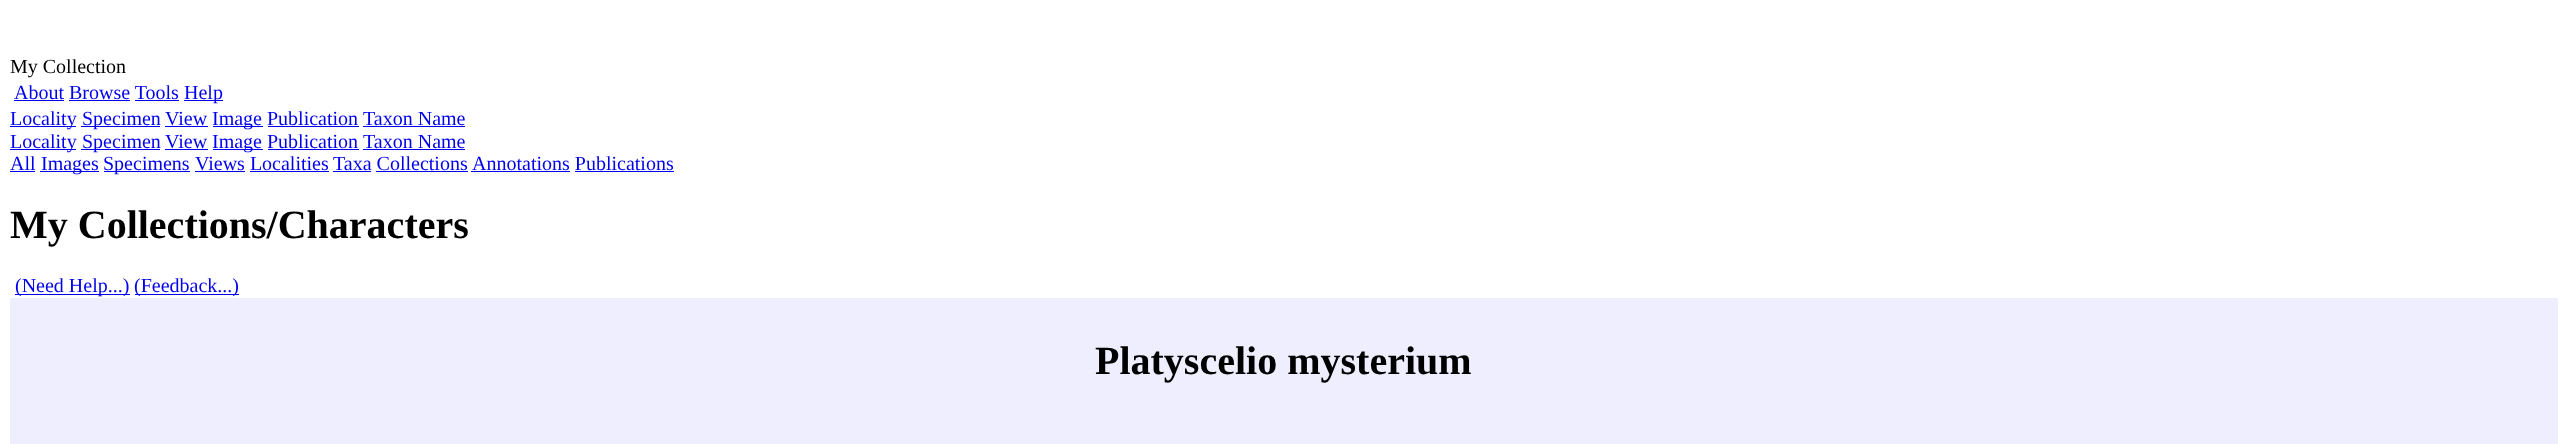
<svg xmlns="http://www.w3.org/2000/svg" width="2567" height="444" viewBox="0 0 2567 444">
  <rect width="100%" height="100%" fill="#ffffff"/>
  <text x="10" y="73" font-family="Liberation Serif" font-size="20" fill="#000000">My Collection</text>
  <text x="14" y="99" font-family="Liberation Serif" font-size="20" fill="#0000ee">About Browse Tools</text>
  <rect x="14" y="100" width="50" height="1" fill="#0000ee"/>
  <rect x="184" y="100" width="39" height="1" fill="#0000ee"/>
  <text x="184" y="99" font-family="Liberation Serif" font-size="20" fill="#0000ee">Help</text>
  <rect x="69" y="100" width="61" height="1" fill="#0000ee"/>
  <rect x="135" y="100" width="44" height="1" fill="#0000ee"/>
  <rect x="10" y="126" width="66" height="1" fill="#0000ee"/>
  <text x="10" y="125" font-family="Liberation Serif" font-size="20" fill="#0000ee">Locality</text>
  <rect x="81" y="126" width="79" height="1" fill="#0000ee"/>
  <text x="82" y="125" font-family="Liberation Serif" font-size="20" fill="#0000ee">Specimen</text>
  <text x="165" y="125" font-family="Liberation Serif" font-size="20" fill="#0000ee">View</text>
  <rect x="165" y="126" width="43" height="1" fill="#0000ee"/>
  <rect x="213" y="126" width="50" height="1" fill="#0000ee"/>
  <text x="212" y="125" font-family="Liberation Serif" font-size="20" fill="#0000ee">Image Publication</text>
  <text x="363" y="125" font-family="Liberation Serif" font-size="20" fill="#0000ee">Taxon Name</text>
  <rect x="363" y="126" width="102" height="1" fill="#0000ee"/>
  <rect x="268" y="126" width="91" height="1" fill="#0000ee"/>
  <rect x="10" y="149" width="66" height="1" fill="#0000ee"/>
  <text x="10" y="148" font-family="Liberation Serif" font-size="20" fill="#0000ee">Locality</text>
  <rect x="81" y="149" width="79" height="1" fill="#0000ee"/>
  <text x="82" y="148" font-family="Liberation Serif" font-size="20" fill="#0000ee">Specimen</text>
  <text x="165" y="148" font-family="Liberation Serif" font-size="20" fill="#0000ee">View</text>
  <rect x="165" y="149" width="43" height="1" fill="#0000ee"/>
  <rect x="213" y="149" width="50" height="1" fill="#0000ee"/>
  <text x="212" y="148" font-family="Liberation Serif" font-size="20" fill="#0000ee">Image Publication</text>
  <text x="363" y="148" font-family="Liberation Serif" font-size="20" fill="#0000ee">Taxon Name</text>
  <rect x="363" y="149" width="102" height="1" fill="#0000ee"/>
  <rect x="268" y="149" width="91" height="1" fill="#0000ee"/>
  <text x="10" y="170" font-family="Liberation Serif" font-size="20" fill="#0000ee">All</text>
  <rect x="10" y="171" width="25" height="1" fill="#0000ee"/>
  <rect x="40" y="171" width="59" height="1" fill="#0000ee"/>
  <text x="41" y="170" font-family="Liberation Serif" font-size="20" fill="#0000ee">Images</text>
  <rect x="104" y="171" width="86" height="1" fill="#0000ee"/>
  <text x="103" y="170" font-family="Liberation Serif" font-size="20" fill="#0000ee">Specimens</text>
  <text x="195" y="170" font-family="Liberation Serif" font-size="20" fill="#0000ee">Views Localities</text>
  <rect x="195" y="171" width="50" height="1" fill="#0000ee"/>
  <text x="333" y="170" font-family="Liberation Serif" font-size="20" fill="#0000ee">Taxa Collections</text>
  <rect x="333" y="171" width="38" height="1" fill="#0000ee"/>
  <text x="472" y="170" font-family="Liberation Serif" font-size="20" fill="#0000ee">Annotations Publications</text>
  <rect x="471" y="171" width="99" height="1" fill="#0000ee"/>
  <rect x="250" y="171" width="79" height="1" fill="#0000ee"/>
  <rect x="376" y="171" width="92" height="1" fill="#0000ee"/>
  <rect x="575" y="171" width="99" height="1" fill="#0000ee"/>
  <text x="10" y="238" font-family="Liberation Serif" font-size="40" font-weight="bold" fill="#000000">My Collections/Characters</text>
  <rect x="15" y="294" width="115" height="1" fill="#0000ee"/>
  <text x="15" y="292" font-family="Liberation Serif" font-size="20" fill="#0000ee">(Need Help...)</text>
  <rect x="135" y="294" width="104" height="1" fill="#0000ee"/>
  <text x="134" y="292" font-family="Liberation Serif" font-size="20" fill="#0000ee">(Feedback...)</text>
  <rect x="10" y="298" width="2548" height="146" fill="#eeeeff"/>
  <text x="1095" y="374" font-family="Liberation Serif" font-size="40" font-weight="bold" fill="#000000">Platyscelio mysterium</text>
</svg>
